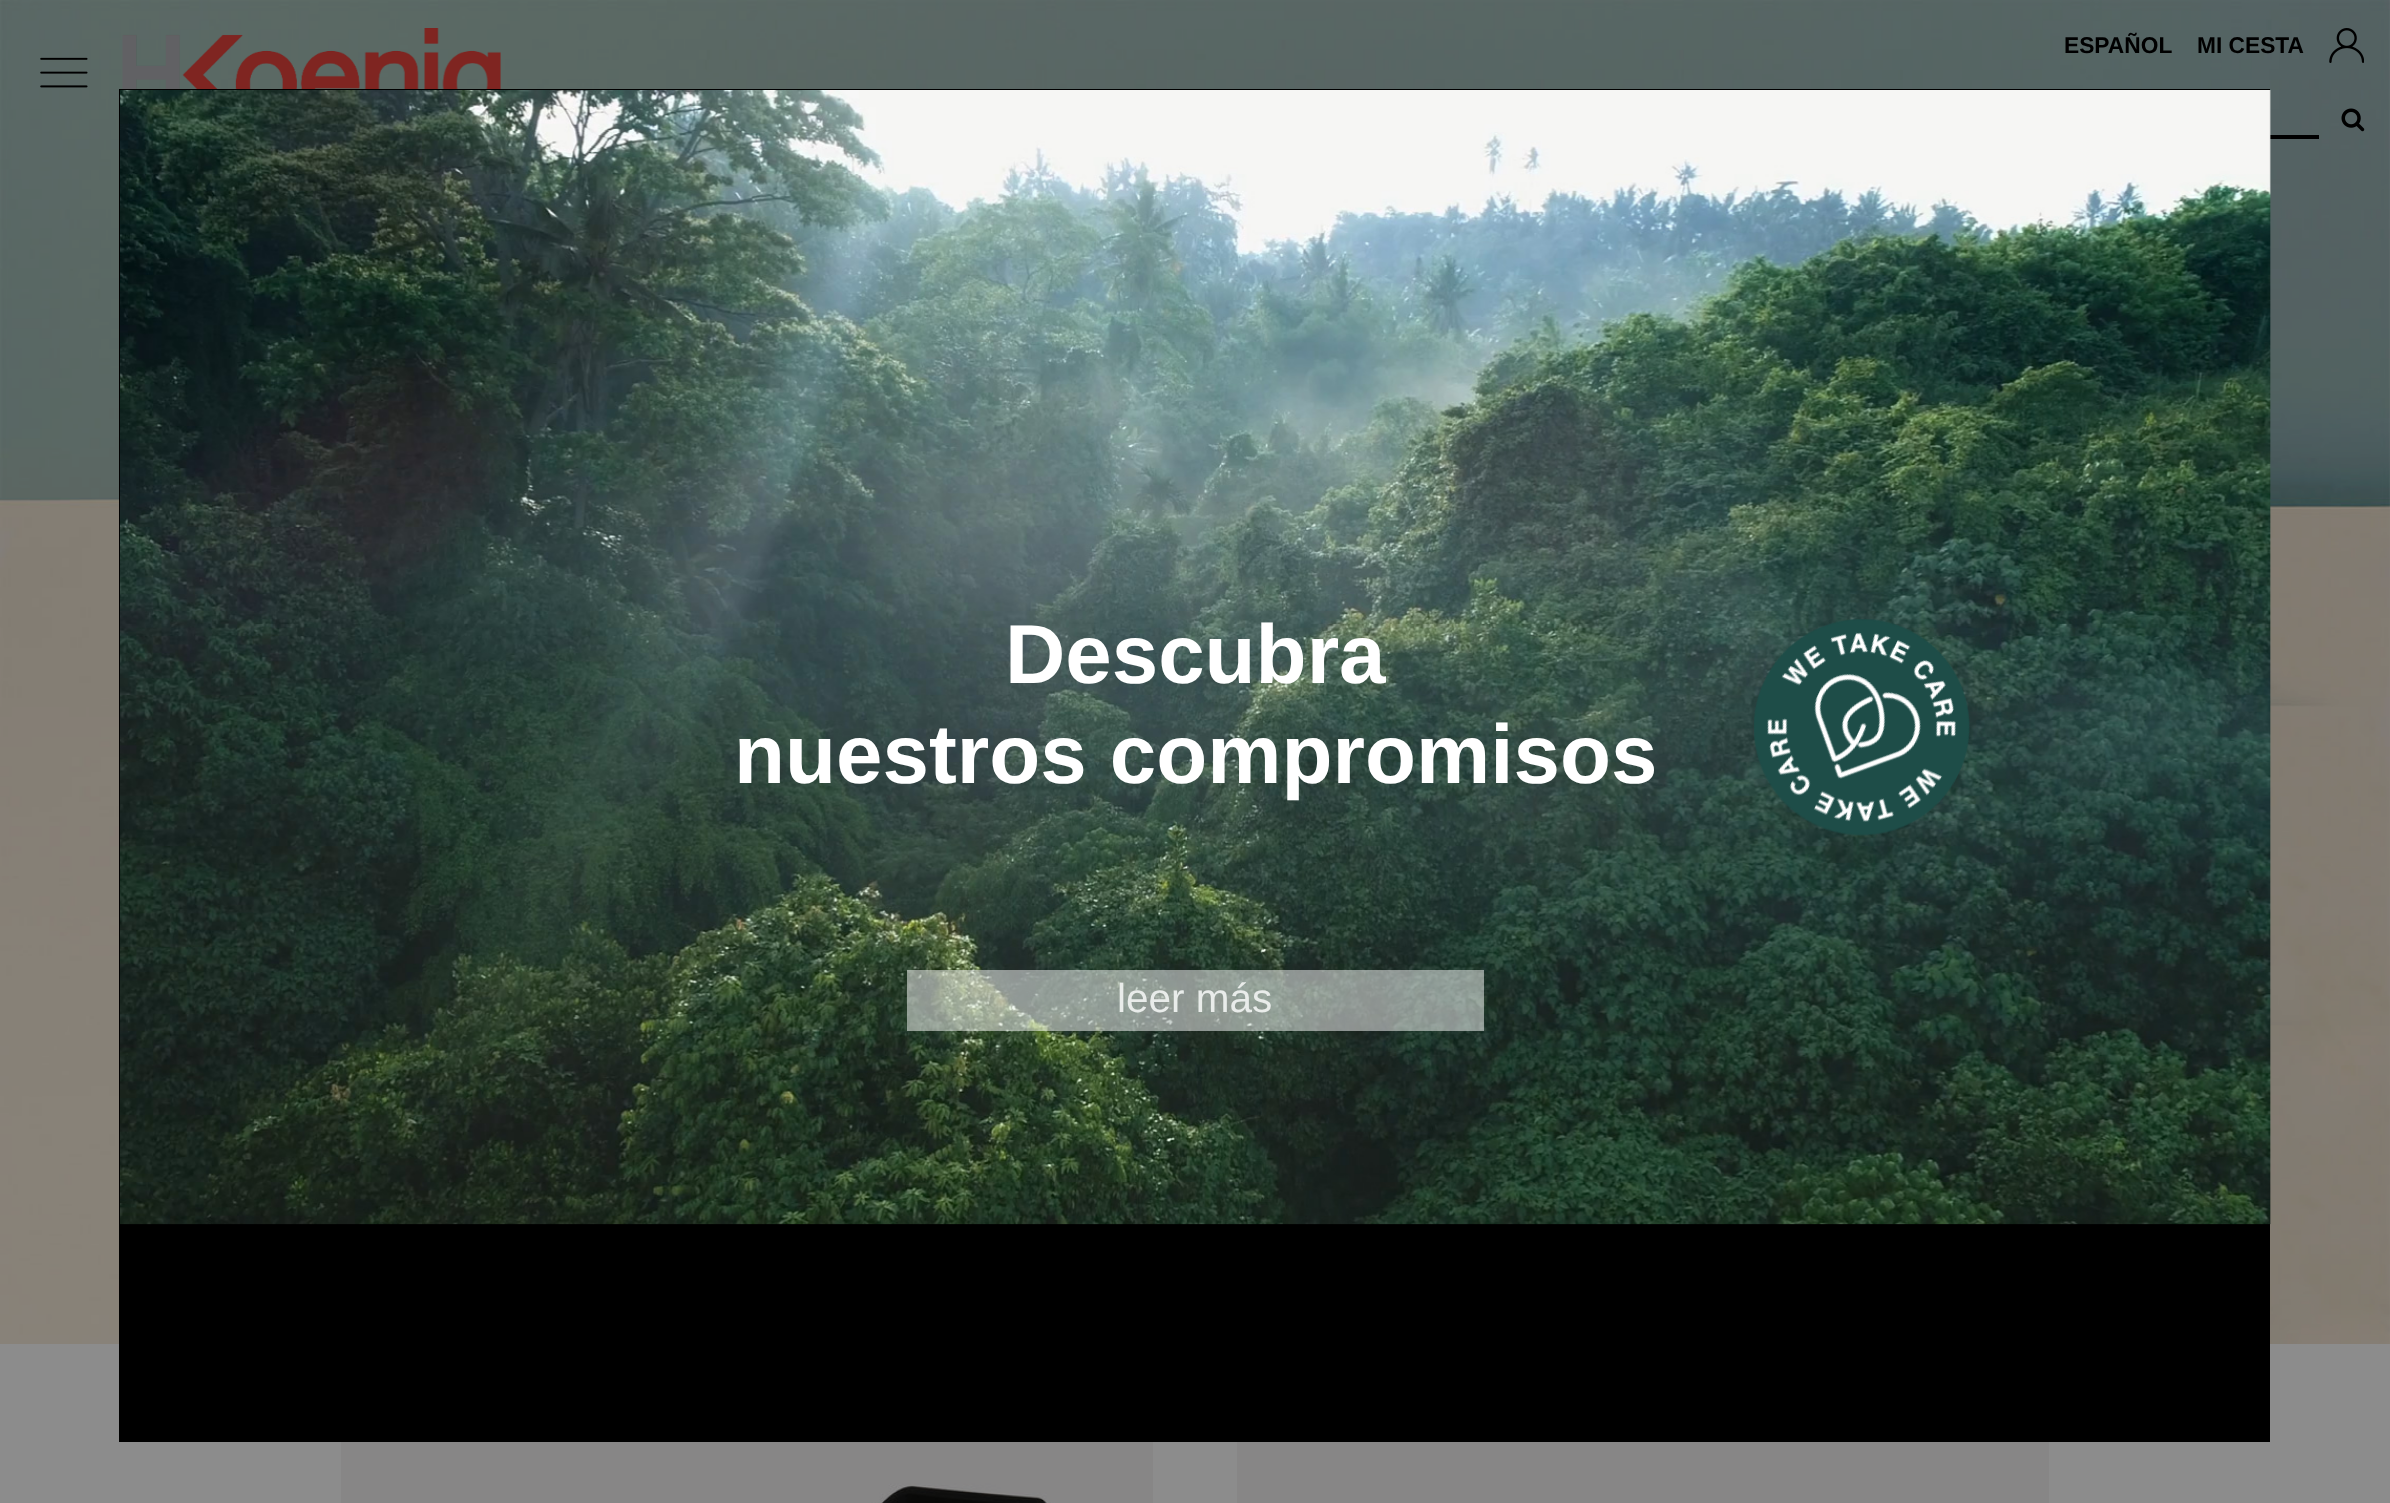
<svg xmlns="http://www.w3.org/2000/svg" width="2390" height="1503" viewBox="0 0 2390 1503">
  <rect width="100%" height="100%" fill="#8c8c8c"/>
  <image x="0" y="0" width="2390" height="1344" href="img1.png"/>
  <image x="341" y="1442" width="812" height="61" href="img2.png"/>
  <rect x="1237" y="1442" width="812" height="61" fill="#878686"/>
  <image x="122" y="28" width="379" height="61" href="img3.png"/>
  <text x="2064" y="53" font-family="Liberation Sans" font-size="22.75" font-weight="bold" fill="#000000">ESPAÑOL</text>
  <text x="2197" y="53" font-family="Liberation Sans" font-size="22.75" font-weight="bold" fill="#000000">MI CESTA</text>
  <image x="2329" y="28" width="35" height="35" href="img4.png"/>
  <image x="2341" y="108" width="24" height="24" href="img5.png"/>
  <rect x="2270" y="135" width="49" height="4" fill="#000000"/>
  <image x="40" y="57" width="48" height="31" href="img6.png"/>
  <rect x="119" y="89" width="2151" height="1353" fill="#000000"/>
  <image x="120" y="90" width="2151" height="1135" href="img7.png"/>
  <text x="1005" y="683" font-family="Liberation Sans" font-size="83.5" font-weight="bold" fill="#ffffff">Descubra</text>
  <text x="734" y="783" font-family="Liberation Sans" font-size="83.5" font-weight="bold" fill="#ffffff">nuestros compromisos</text>
  <image x="1754" y="619" width="216" height="217" href="img8.png"/>
  <rect x="907" y="970" width="577" height="61" fill="#ffffff" fill-opacity="0.5"/>
  <text x="1117" y="1012" font-family="Liberation Sans" font-size="40.5" fill="#e9ecea">leer más</text>
</svg>
